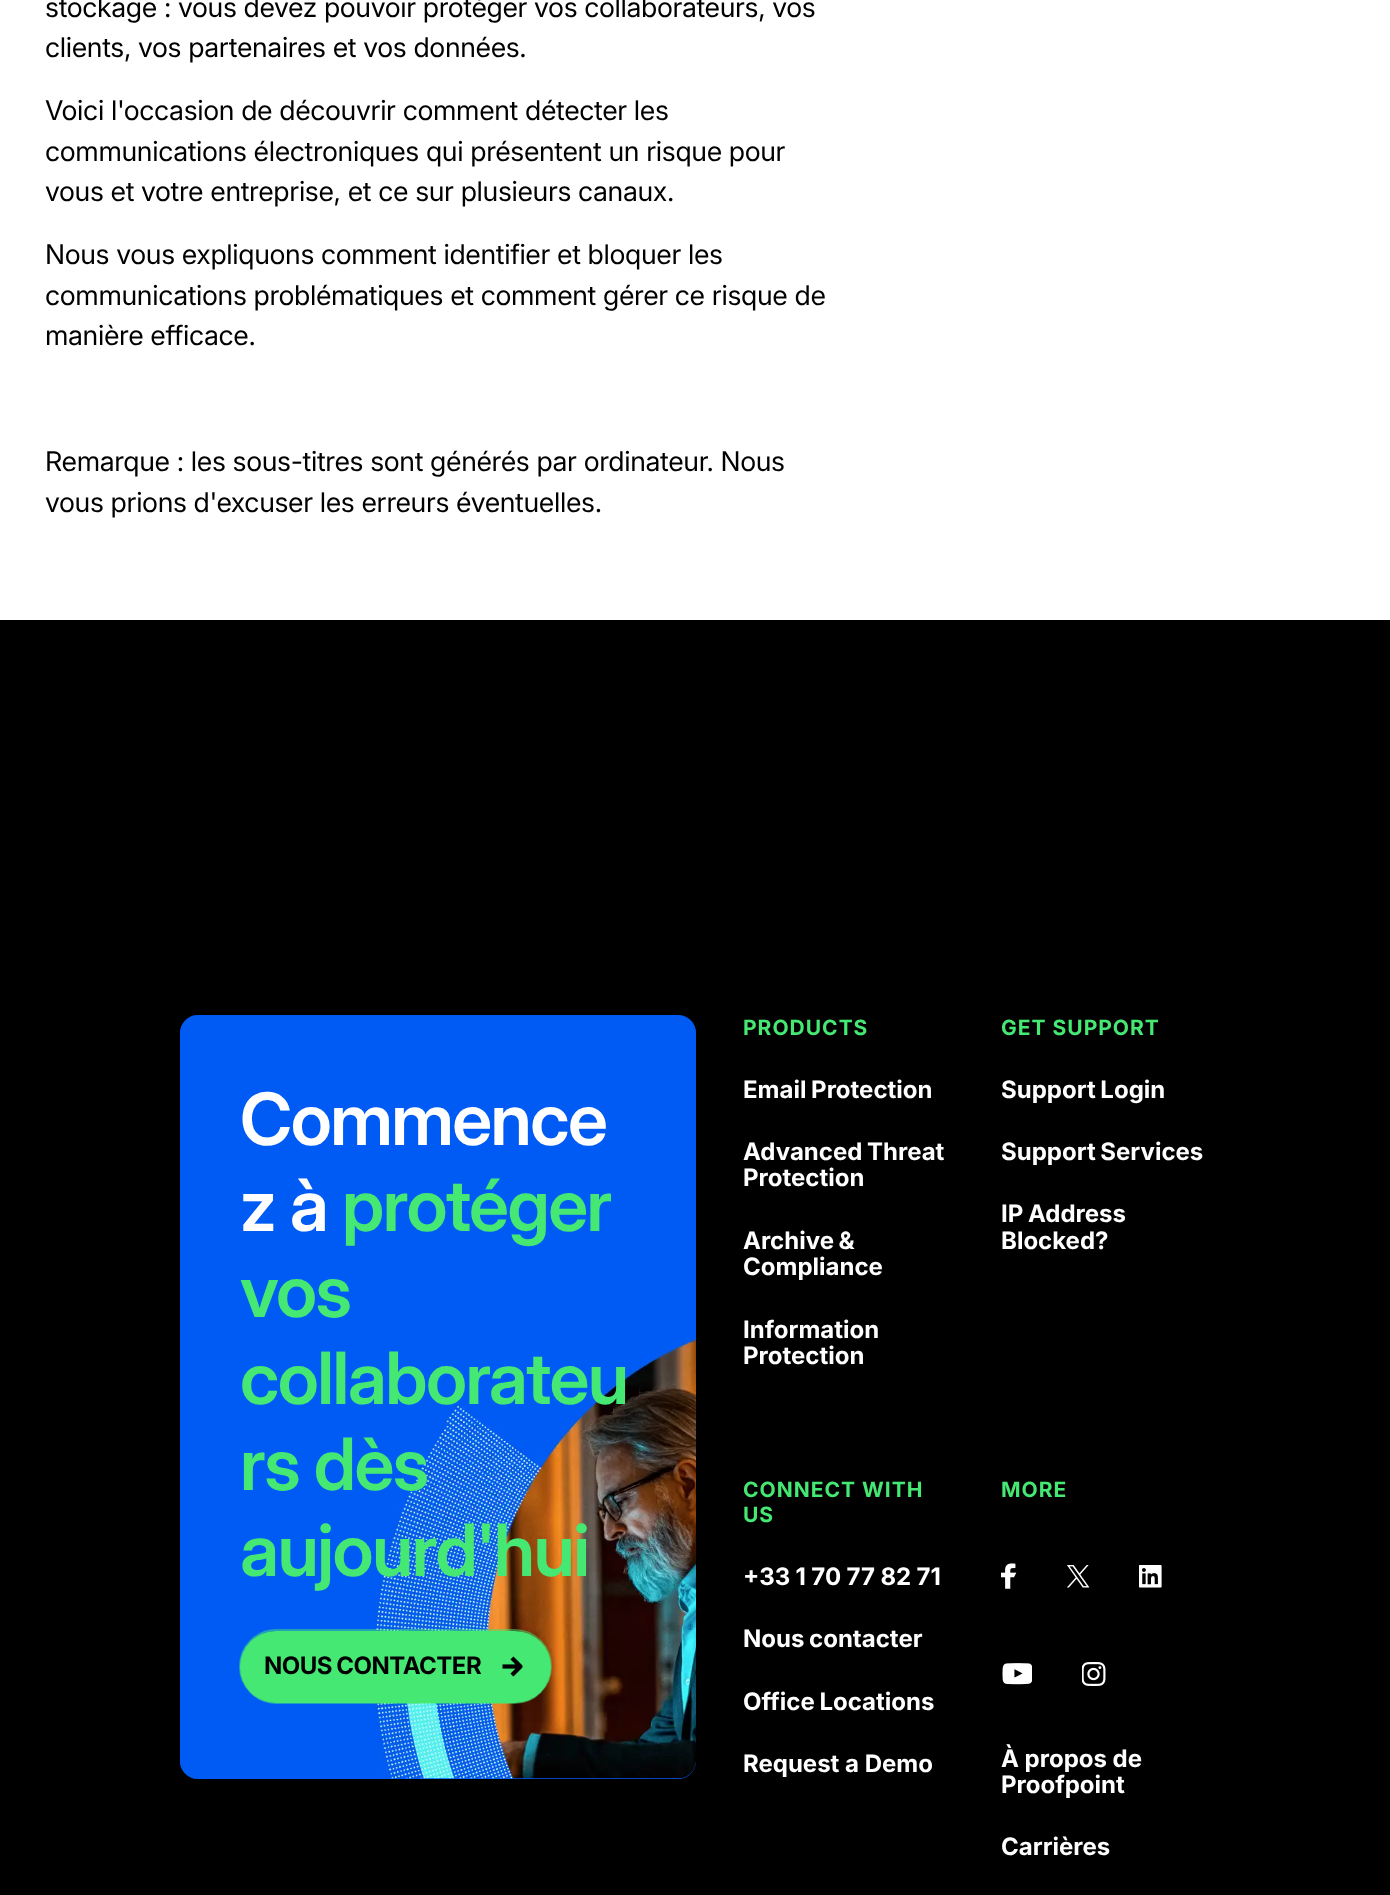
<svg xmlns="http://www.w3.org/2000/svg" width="1390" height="1895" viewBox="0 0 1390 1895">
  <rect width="100%" height="100%" fill="#ffffff"/>
  <text x="45" y="17" font-family="Inter" font-size="27" letter-spacing="-0.35" fill="#000000">stockage : vous devez pouvoir protéger vos collaborateurs, vos</text>
  <text x="45" y="57" font-family="Inter" font-size="27" letter-spacing="-0.35" fill="#000000">clients, vos partenaires et vos données.</text>
  <text x="45" y="120" font-family="Inter" font-size="27" letter-spacing="-0.35" fill="#000000">Voici l'occasion de découvrir comment détecter les</text>
  <text x="45" y="161" font-family="Inter" font-size="27" letter-spacing="-0.35" fill="#000000">communications électroniques qui présentent un risque pour</text>
  <text x="45" y="201" font-family="Inter" font-size="27" letter-spacing="-0.35" fill="#000000">vous et votre entreprise, et ce sur plusieurs canaux.</text>
  <text x="45" y="264" font-family="Inter" font-size="27" letter-spacing="-0.35" fill="#000000">Nous vous expliquons comment identifier et bloquer les</text>
  <text x="45" y="305" font-family="Inter" font-size="27" letter-spacing="-0.35" fill="#000000">communications problématiques et comment gérer ce risque de</text>
  <text x="45" y="345" font-family="Inter" font-size="27" letter-spacing="-0.35" fill="#000000">manière efficace.</text>
  <text x="45" y="471" font-family="Inter" font-size="27" letter-spacing="-0.35" fill="#000000">Remarque : les sous-titres sont générés par ordinateur. Nous</text>
  <text x="45" y="512" font-family="Inter" font-size="27" letter-spacing="-0.35" fill="#000000">vous prions d'excuser les erreurs éventuelles.</text>
  <rect x="0" y="620" width="1390" height="1275" fill="#000000"/>
  <rect x="180" y="1016" width="516" height="763" rx="18" fill="#035bfb"/>
  <image x="180" y="1015" width="516" height="764" href="img1.png"/>
  <text x="240" y="1145" font-family="Inter" font-size="72" font-weight="600" letter-spacing="-1.5" fill="#ffffff">Commence</text>
  <text x="240" y="1231" font-family="Inter" font-size="72" font-weight="600" letter-spacing="-1.5" fill="#ffffff">z à</text>
  <text x="342" y="1231" font-family="Inter" font-size="72" font-weight="600" letter-spacing="-1.5" fill="#46e874">protéger</text>
  <text x="240" y="1317" font-family="Inter" font-size="72" font-weight="600" letter-spacing="-1.5" fill="#46e874">vos</text>
  <text x="240" y="1404" font-family="Inter" font-size="72" font-weight="600" letter-spacing="-1.5" fill="#46e874">collaborateu</text>
  <text x="240" y="1490" font-family="Inter" font-size="72" font-weight="600" letter-spacing="-1.5" fill="#46e874">rs dès</text>
  <text x="240" y="1576" font-family="Inter" font-size="72" font-weight="600" letter-spacing="-1.5" fill="#46e874">aujourd'hui</text>
  <rect x="240" y="1631" width="311" height="72" rx="36" fill="#46e874"/>
  <rect x="240" y="1630" width="311" height="73" rx="36.5" fill="none" stroke="#46e874" stroke-opacity="0.5" stroke-width="2"/>
  <text x="264" y="1674" word-spacing="-1" font-family="Inter" font-size="24" font-weight="bold" letter-spacing="-0.5" fill="#000000">NOUS CONTACTER</text>
  <image x="502" y="1656" width="21" height="21" href="img2.png"/>
  <text x="743" y="1035" font-family="Inter" font-size="21" font-weight="bold" letter-spacing="1" fill="#46e874">PRODUCTS</text>
  <text x="743" y="1098" word-spacing="-1" font-family="Inter" font-size="24" font-weight="bold" fill="#ffffff">Email Protection</text>
  <text x="743" y="1160" word-spacing="-1" font-family="Inter" font-size="24" font-weight="bold" fill="#ffffff">Advanced Threat</text>
  <text x="743" y="1186" font-family="Inter" font-size="24" font-weight="bold" fill="#ffffff">Protection</text>
  <text x="743" y="1249" word-spacing="-1" font-family="Inter" font-size="24" font-weight="bold" fill="#ffffff">Archive &amp;</text>
  <text x="743" y="1275" font-family="Inter" font-size="24" font-weight="bold" fill="#ffffff">Compliance</text>
  <text x="743" y="1338" font-family="Inter" font-size="24" font-weight="bold" fill="#ffffff">Information</text>
  <text x="743" y="1364" font-family="Inter" font-size="24" font-weight="bold" fill="#ffffff">Protection</text>
  <text x="1001" y="1035" font-family="Inter" font-size="21" font-weight="bold" letter-spacing="1" fill="#46e874">GET SUPPORT</text>
  <text x="1001" y="1098" word-spacing="-1" font-family="Inter" font-size="24" font-weight="bold" fill="#ffffff">Support Login</text>
  <text x="1001" y="1160" word-spacing="-1" font-family="Inter" font-size="24" font-weight="bold" fill="#ffffff">Support Services</text>
  <text x="1001" y="1222" word-spacing="-1" font-family="Inter" font-size="24" font-weight="bold" fill="#ffffff">IP Address</text>
  <text x="1001" y="1249" font-family="Inter" font-size="24" font-weight="bold" fill="#ffffff">Blocked?</text>
  <text x="743" y="1497" font-family="Inter" font-size="21" font-weight="bold" letter-spacing="1" fill="#46e874">CONNECT WITH</text>
  <text x="743" y="1522" font-family="Inter" font-size="21" font-weight="bold" letter-spacing="1" fill="#46e874">US</text>
  <text x="743" y="1585" word-spacing="-0.25" font-family="Inter" font-size="24" font-weight="bold" fill="#ffffff">+33 1 70 77 82 71</text>
  <text x="743" y="1647" word-spacing="-1" font-family="Inter" font-size="24" font-weight="bold" fill="#ffffff">Nous contacter</text>
  <text x="743" y="1710" word-spacing="-1" font-family="Inter" font-size="24" font-weight="bold" fill="#ffffff">Office Locations</text>
  <text x="743" y="1772" font-family="Inter" font-size="24" font-weight="bold" fill="#ffffff">Request a Demo</text>
  <text x="1001" y="1497" font-family="Inter" font-size="21" font-weight="bold" letter-spacing="1" fill="#46e874">MORE</text>
  <image x="1001" y="1563" width="16" height="26" href="img3.png"/>
  <image x="1067" y="1565" width="23" height="23" href="img4.png"/>
  <image x="1139" y="1565" width="23" height="23" href="img5.png"/>
  <image x="1002" y="1663" width="30" height="22" href="img6.png"/>
  <image x="1082" y="1662" width="24" height="24" href="img7.png"/>
  <text x="1001" y="1767" font-family="Inter" font-size="24" font-weight="bold" fill="#ffffff">À propos de</text>
  <text x="1001" y="1793" font-family="Inter" font-size="24" font-weight="bold" fill="#ffffff">Proofpoint</text>
  <text x="1001" y="1855" font-family="Inter" font-size="24" font-weight="bold" fill="#ffffff">Carrières</text>
</svg>
